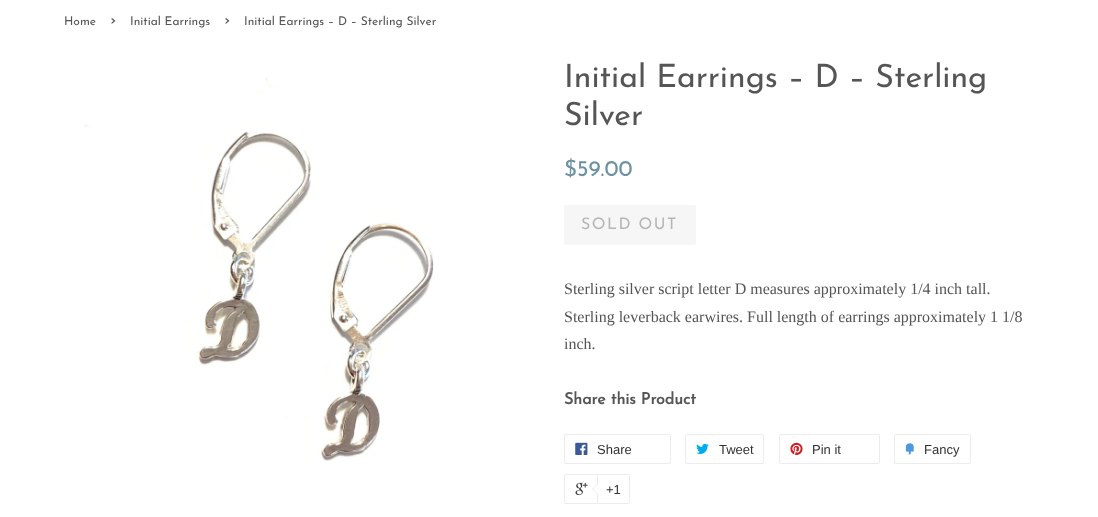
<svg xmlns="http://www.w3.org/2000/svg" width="1098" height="517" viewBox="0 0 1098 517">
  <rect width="100%" height="100%" fill="#ffffff"/>
  <text x="64" y="25" font-family="Josefin Sans" font-size="12" font-weight="100" fill="#555555">Home</text>
  <text x="110" y="25" font-family="Josefin Sans" font-size="17" font-weight="100" fill="#555555">›</text>
  <text x="130" y="25" font-family="Josefin Sans" font-size="12" font-weight="100" fill="#555555">Initial Earrings</text>
  <text x="224" y="25" font-family="Josefin Sans" font-size="17" font-weight="100" fill="#555555">›</text>
  <text x="244" y="25" font-family="Josefin Sans" font-size="12" font-weight="100" fill="#555555">Initial Earrings – D – Sterling Silver</text>
  <image x="84" y="77" width="351" height="384" href="img1.png"/>
  <text x="564" y="87" font-family="Josefin Sans" font-size="32" font-weight="100" fill="#555555">Initial Earrings – D – Sterling</text>
  <text x="564" y="125" font-family="Josefin Sans" font-size="32" font-weight="100" fill="#555555">Silver</text>
  <text x="564" y="176" font-family="Josefin Sans" font-size="22.5" font-weight="100" fill="#6d92a0">$59.00</text>
  <rect x="564" y="205" width="132" height="40" rx="2" fill="#f6f6f6"/>
  <text x="581" y="229" font-family="Josefin Sans" font-size="16" font-weight="100" letter-spacing="1.5" fill="#b6b6b6">SOLD OUT</text>
  <text x="564" y="294" font-family="Liberation Serif" font-size="16" fill="#555555">Sterling silver script letter D measures approximately 1/4 inch tall.</text>
  <text x="564" y="322" font-family="Liberation Serif" font-size="16" fill="#555555">Sterling leverback earwires. Full length of earrings approximately 1 1/8</text>
  <text x="564" y="349" font-family="Liberation Serif" font-size="16" fill="#555555">inch.</text>
  <text x="564" y="404" font-family="Josefin Sans" font-size="16" font-weight="bold" fill="#555555">Share this Product</text>
  <rect x="564.5" y="434.5" width="106" height="29" rx="1.5" fill="none" stroke="#ececec"/>
  <image x="575" y="442" width="13" height="13" href="img2.png"/>
  <text x="597" y="454" font-family="Liberation Sans" font-size="13" fill="#333333">Share</text>
  <rect x="685.5" y="434.5" width="78" height="29" rx="1.5" fill="none" stroke="#ececec"/>
  <image x="696" y="443" width="13" height="11" href="img3.png"/>
  <text x="719" y="454" font-family="Liberation Sans" font-size="13" fill="#333333">Tweet</text>
  <rect x="779.5" y="434.5" width="100" height="29" rx="1.5" fill="none" stroke="#ececec"/>
  <image x="790" y="442" width="13" height="13" href="img4.png"/>
  <text x="812" y="454" font-family="Liberation Sans" font-size="13" fill="#333333">Pin it</text>
  <rect x="894.5" y="434.5" width="76" height="29" rx="1.5" fill="none" stroke="#ececec"/>
  <image x="905" y="443" width="9" height="12" href="img5.png"/>
  <text x="924" y="454" font-family="Liberation Sans" font-size="13" fill="#333333">Fancy</text>
  <rect x="564.5" y="474.5" width="64" height="29" rx="1.5" fill="none" stroke="#ececec"/>
  <image x="575" y="482" width="13" height="13" href="img6.png"/>
  <path d="M597.5 474.5H628C629 474.5 629.5 475 629.5 476V502C629.5 503 629 503.5 628 503.5H597.5Z" fill="#ffffff" stroke="#ececec"/>
  <path d="M598 483V495L592 489Z" fill="#ececec"/>
  <path d="M599 483V495L593 489Z" fill="#ffffff"/>
  <text x="606" y="494" font-family="Liberation Sans" font-size="13" fill="#333333">+1</text>
</svg>
